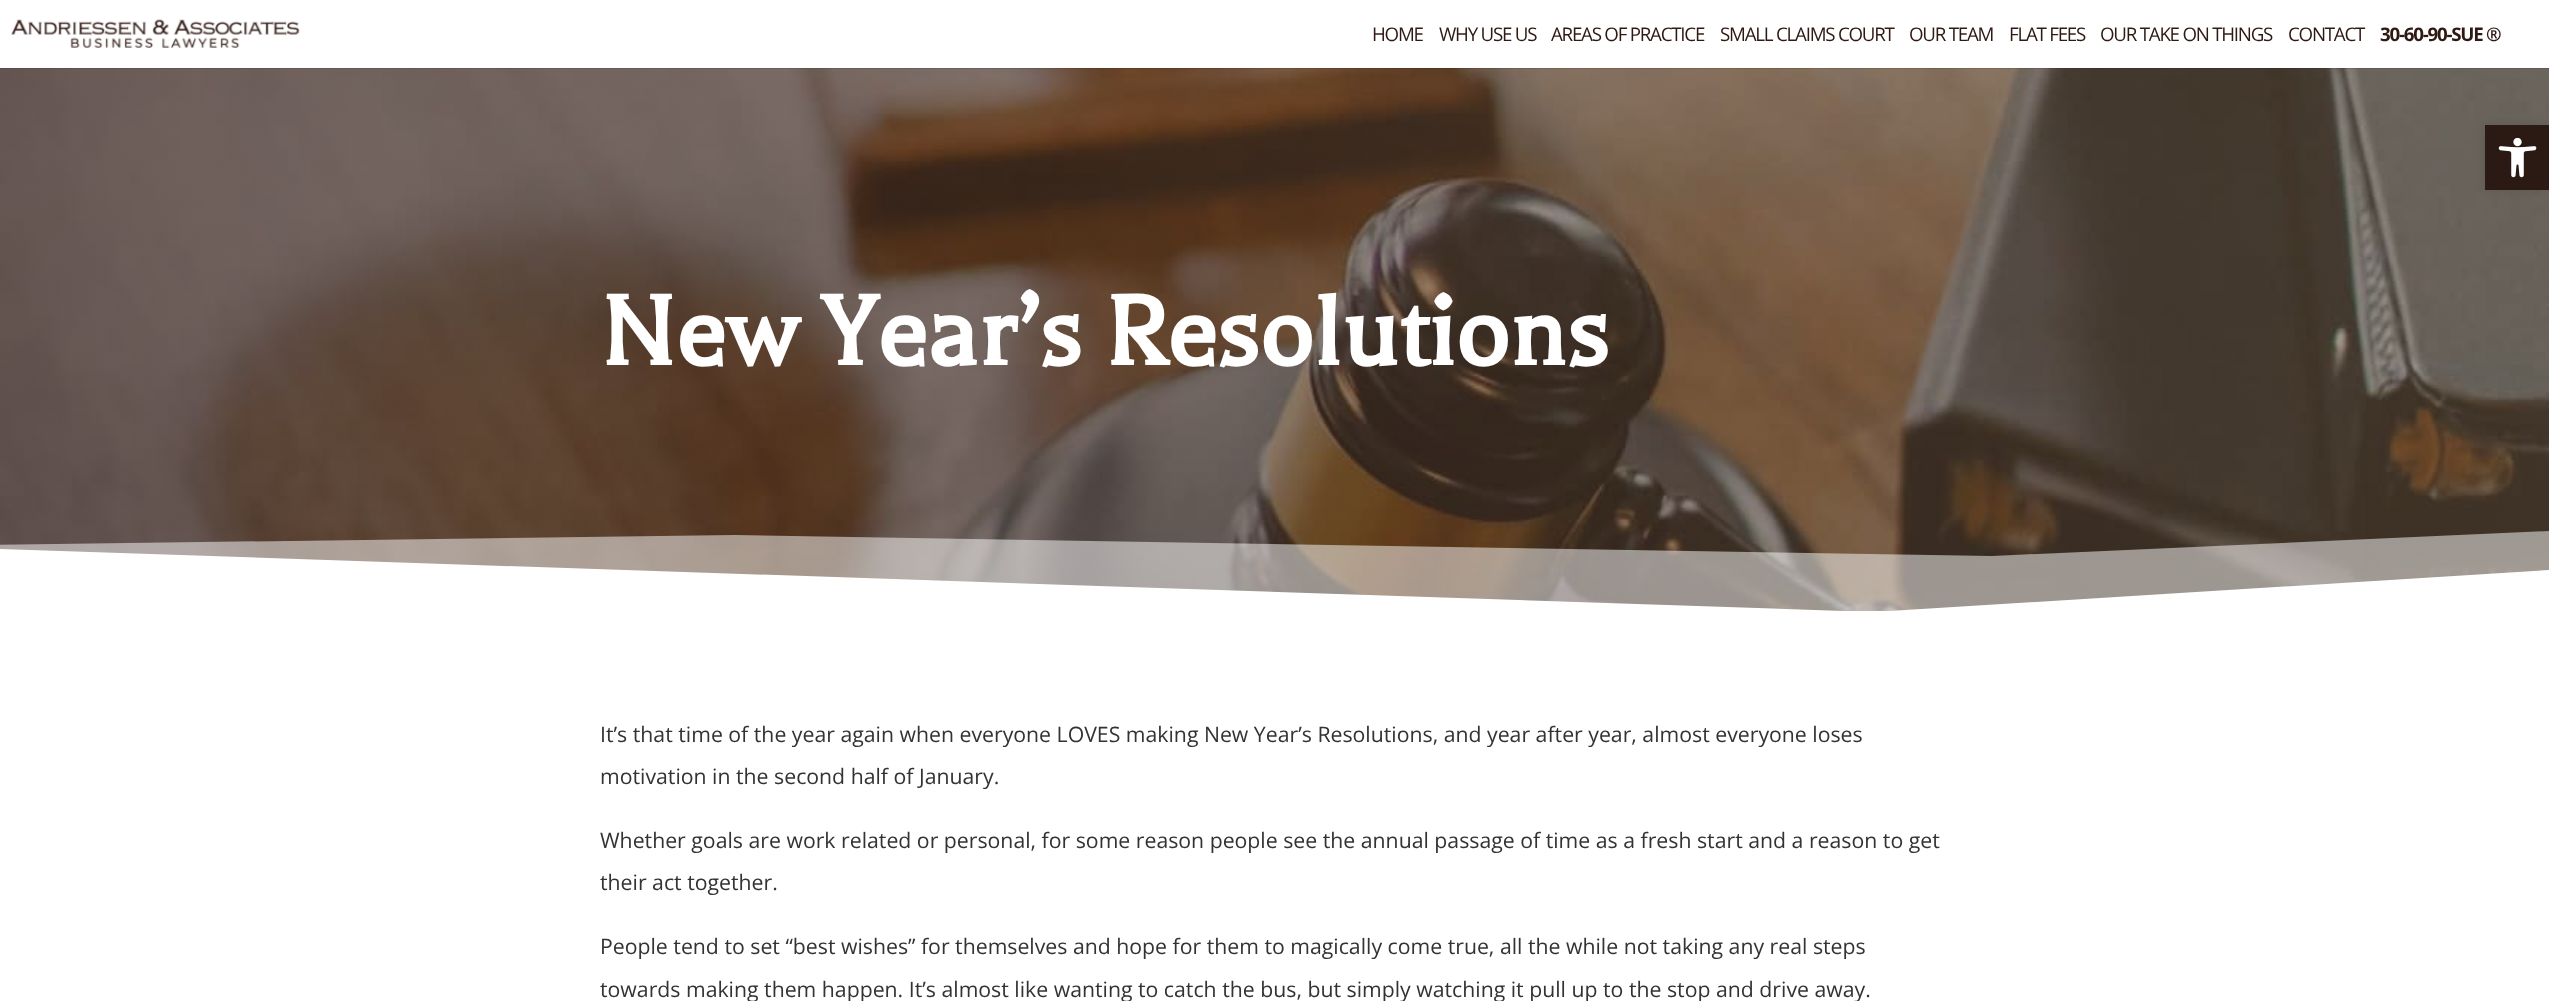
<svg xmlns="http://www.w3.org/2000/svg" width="2549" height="1001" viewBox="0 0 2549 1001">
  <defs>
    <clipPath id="clip1"><rect x="0" y="486" width="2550" height="125"/></clipPath>
    <filter id="blur1" x="-50%" y="-200%" width="200%" height="500%"><feGaussianBlur stdDeviation="6"/></filter>
  </defs>
  <rect width="100%" height="100%" fill="#ffffff"/>
  <image x="0" y="68" width="2549" height="543" href="img2.png"/>
  <rect x="0" y="68" width="2549" height="1" fill="#000000" fill-opacity="0.1"/>
  <image x="11" y="19" width="289" height="29" href="img1.png"/>
  <text x="1372" y="41" font-family="Open Sans" font-size="18.75" letter-spacing="-1.25" fill="#2e1913">HOME</text>
  <text x="1439" y="41" font-family="Open Sans" font-size="18.75" letter-spacing="-1.25" fill="#2e1913">WHY USE US</text>
  <text x="1551" y="41" font-family="Open Sans" font-size="18.75" letter-spacing="-1.25" fill="#2e1913">AREAS OF PRACTICE</text>
  <text x="1720" y="41" font-family="Open Sans" font-size="18.75" letter-spacing="-1.25" fill="#2e1913">SMALL CLAIMS COURT</text>
  <text x="1909" y="41" font-family="Open Sans" font-size="18.75" letter-spacing="-1.25" fill="#2e1913">OUR TEAM</text>
  <text x="2009" y="41" font-family="Open Sans" font-size="18.75" letter-spacing="-1.25" fill="#2e1913">FLAT FEES</text>
  <text x="2100" y="41" font-family="Open Sans" font-size="18.75" letter-spacing="-1.25" fill="#2e1913">OUR TAKE ON THINGS</text>
  <text x="2288" y="41" font-family="Open Sans" font-size="18.75" letter-spacing="-1.25" fill="#2e1913">CONTACT</text>
  <text x="2380" y="41" font-family="Open Sans" font-size="18.75" font-weight="bold" letter-spacing="-1.25" fill="#2e1913">30-60-90-SUE ®</text>
  <text x="600" y="365" font-family="Balthazar" font-size="112.5" font-weight="bold" fill="#ffffff">New Year’s Resolutions</text>
  <g clip-path="url(#clip1)">
    <path d="M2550 531L1992 556L735 535L-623 553L-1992 519L-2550 531V612H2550Z" fill="#ffffff" fill-opacity="0.5"/>
    <path d="M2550 612V570L1873 612L-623 528L-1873 534L-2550 570V612Z" fill="#ffffff"/>
  </g>
  <text x="600" y="742" font-family="Open Sans" font-size="21.25" fill="#333333">It’s that time of the year again when everyone LOVES making New Year’s Resolutions, and year after year, almost everyone loses</text>
  <text x="600" y="784" font-family="Open Sans" font-size="21.25" fill="#333333">motivation in the second half of January.</text>
  <text x="600" y="848" font-family="Open Sans" font-size="21.25" fill="#333333">Whether goals are work related or personal, for some reason people see the annual passage of time as a fresh start and a reason to get</text>
  <text x="600" y="890" font-family="Open Sans" font-size="21.25" fill="#333333">their act together.</text>
  <text x="600" y="954" font-family="Open Sans" font-size="21.25" fill="#333333">People tend to set “best wishes” for themselves and hope for them to magically come true, all the while not taking any real steps</text>
  <text x="600" y="997" font-family="Open Sans" font-size="21.25" fill="#333333">towards making them happen. It’s almost like wanting to catch the bus, but simply watching it pull up to the stop and drive away.</text>
  <rect x="2485" y="125" width="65" height="65" fill="#000000" fill-opacity="0.1" filter="url(#blur1)"/>
  <rect x="2485" y="125" width="64" height="65" fill="#2b1a14"/>
  <image x="2498" y="138" width="39" height="40" href="img3.png"/>
</svg>
